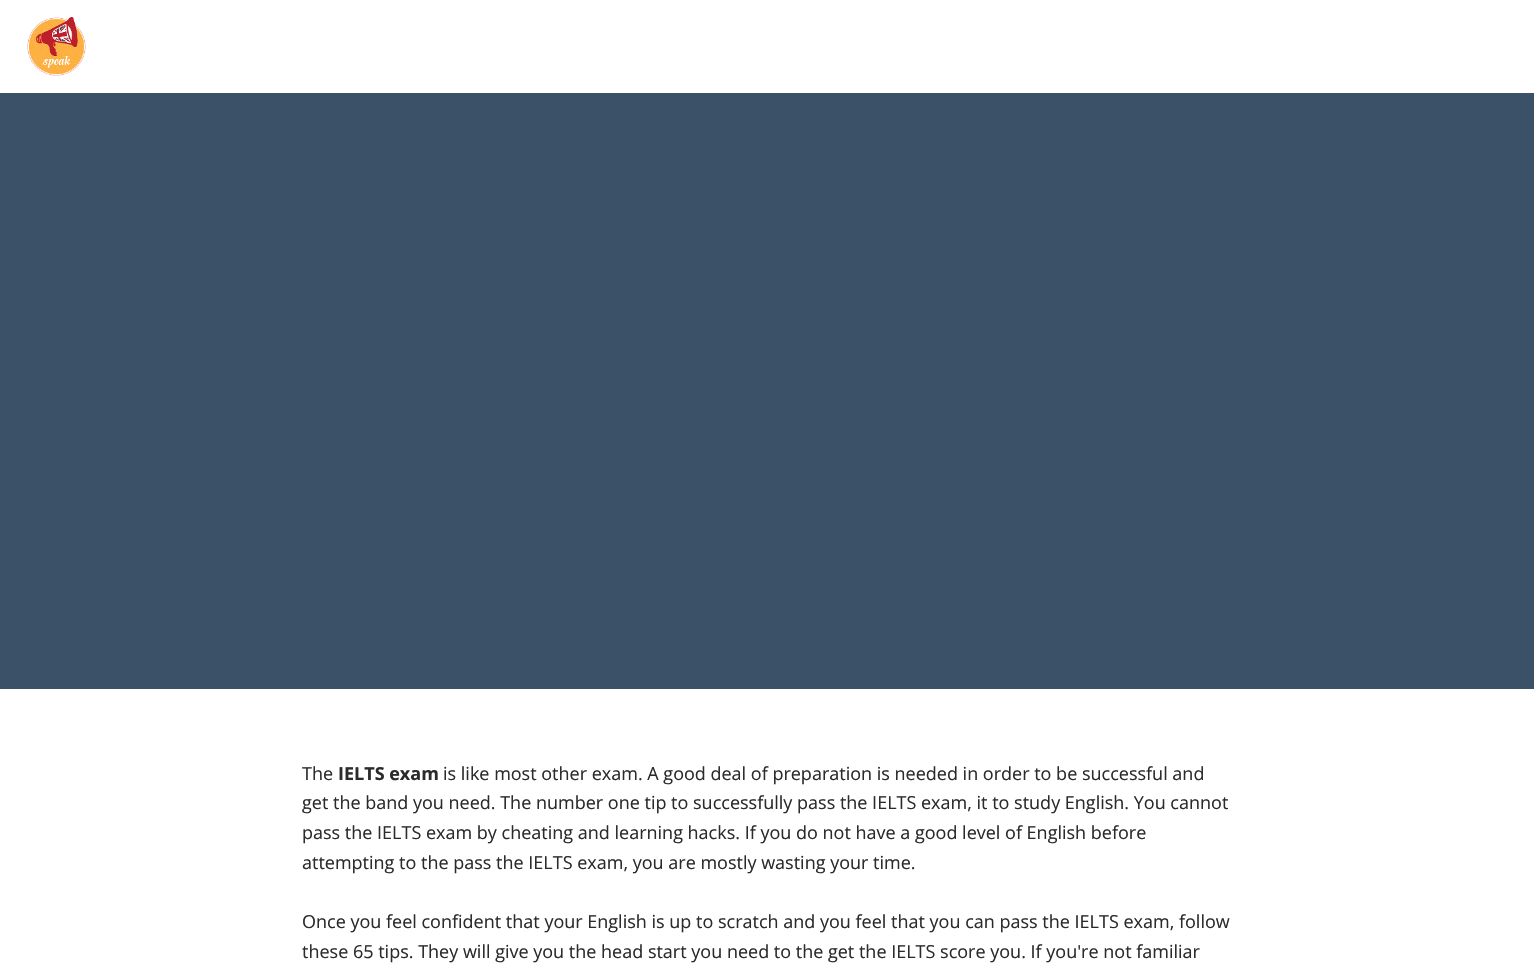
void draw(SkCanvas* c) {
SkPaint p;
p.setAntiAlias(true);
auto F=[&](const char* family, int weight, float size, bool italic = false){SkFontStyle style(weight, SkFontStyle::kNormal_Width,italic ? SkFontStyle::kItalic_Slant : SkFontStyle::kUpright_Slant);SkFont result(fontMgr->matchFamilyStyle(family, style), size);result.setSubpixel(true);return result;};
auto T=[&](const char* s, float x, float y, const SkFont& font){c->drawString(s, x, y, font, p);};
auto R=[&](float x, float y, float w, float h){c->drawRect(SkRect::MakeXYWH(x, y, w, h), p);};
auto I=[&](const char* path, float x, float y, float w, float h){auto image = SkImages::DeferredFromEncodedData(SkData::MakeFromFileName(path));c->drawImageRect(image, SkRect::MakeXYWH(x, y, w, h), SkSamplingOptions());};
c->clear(0xffffffff);
I("1.png",27,17,59,59);
p.setColor(0xff3a5167);
R(0,93,1534,596);
auto f1 = F("Open Sans",400,18);
p.setColor(0xff2b2b2b);
T("The",302,780,f1);
auto f2 = F("Open Sans",700,18);
T("IELTS exam",338,780,f2);
T("is like most other exam. A good deal of preparation is needed in order to be successful and",443,780,f1);
T("get the band you need. The number one tip to successfully pass the IELTS exam, it to study English. You cannot",302,809,f1);
T("pass the IELTS exam by cheating and learning hacks. If you do not have a good level of English before",302,839,f1);
T("attempting to the pass the IELTS exam, you are mostly wasting your time.",302,869,f1);
T("Once you feel confident that your English is up to scratch and you feel that you can pass the IELTS exam, follow",302,928,f1);
T("these 65 tips. They will give you the head start you need to the get the IELTS score you. If you're not familiar",302,958,f1);
}
